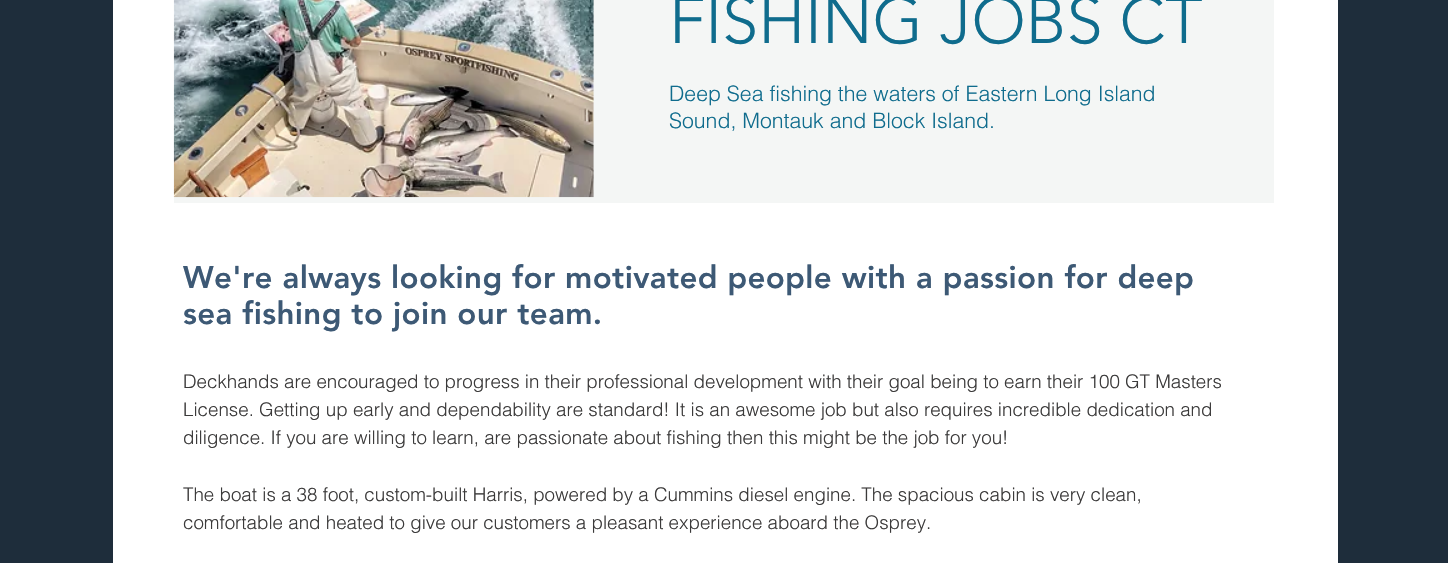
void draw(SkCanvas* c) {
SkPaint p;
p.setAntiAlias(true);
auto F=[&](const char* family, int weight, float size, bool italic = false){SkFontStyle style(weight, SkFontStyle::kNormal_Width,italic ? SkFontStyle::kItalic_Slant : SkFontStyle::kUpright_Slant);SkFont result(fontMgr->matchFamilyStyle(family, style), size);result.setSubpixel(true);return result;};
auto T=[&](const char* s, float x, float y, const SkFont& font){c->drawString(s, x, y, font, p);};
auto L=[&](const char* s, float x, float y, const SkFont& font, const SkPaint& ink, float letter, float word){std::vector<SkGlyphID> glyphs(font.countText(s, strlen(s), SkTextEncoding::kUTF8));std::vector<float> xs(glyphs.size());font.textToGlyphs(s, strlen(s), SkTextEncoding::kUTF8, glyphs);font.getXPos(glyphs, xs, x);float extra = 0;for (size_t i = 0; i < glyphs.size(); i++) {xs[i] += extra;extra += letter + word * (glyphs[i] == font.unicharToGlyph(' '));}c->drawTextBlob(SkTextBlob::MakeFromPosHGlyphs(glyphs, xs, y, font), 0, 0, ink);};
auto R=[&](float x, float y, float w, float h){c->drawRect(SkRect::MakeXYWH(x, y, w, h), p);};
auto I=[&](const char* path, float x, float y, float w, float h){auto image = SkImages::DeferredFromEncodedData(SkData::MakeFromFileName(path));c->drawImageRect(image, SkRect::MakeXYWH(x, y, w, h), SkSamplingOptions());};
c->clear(0xff1e2d3b);
p.setColor(0xffffffff);
R(113,0,1225,563);
p.setColor(0xfff4f6f5);
R(174,0,1100,203);
I("1.png",173,0,421,198);
auto f1 = F("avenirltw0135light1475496",300,65);
p.setColor(0xff0f6c8d);
T("FISHING JOBS CT",669,43,f1);
auto f2 = F("helvetica",300,21.25);
T("Deep Sea fishing the waters of Eastern Long Island",669,101,f2);
T("Sound, Montauk and Block Island.",669,128,f2);
auto f3 = F("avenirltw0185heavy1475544",900,31.25);
p.setColor(0xff3d5975);
L("We're always looking for motivated people with a passion for deep",183,288,f3,p,.38,0);
L("sea fishing to join our team.",183,324,f3,p,.38,0);
auto f4 = F("helvetica",300,18.75);
p.setColor(0xff3b3a3a);
T("Deckhands are encouraged to progress in their professional development with their goal being to earn their 100 GT Masters",183,388,f4);
T("License. Getting up early and dependability are standard! It is an awesome job but also requires incredible dedication and",183,416,f4);
T("diligence. If you are willing to learn, are passionate about fishing then this might be the job for you!",183,444,f4);
T("The boat is a 38 foot, custom-built Harris, powered by a Cummins diesel engine. The spacious cabin is very clean,",183,501,f4);
T("comfortable and heated to give our customers a pleasant experience aboard the Osprey.",183,529,f4);
}
